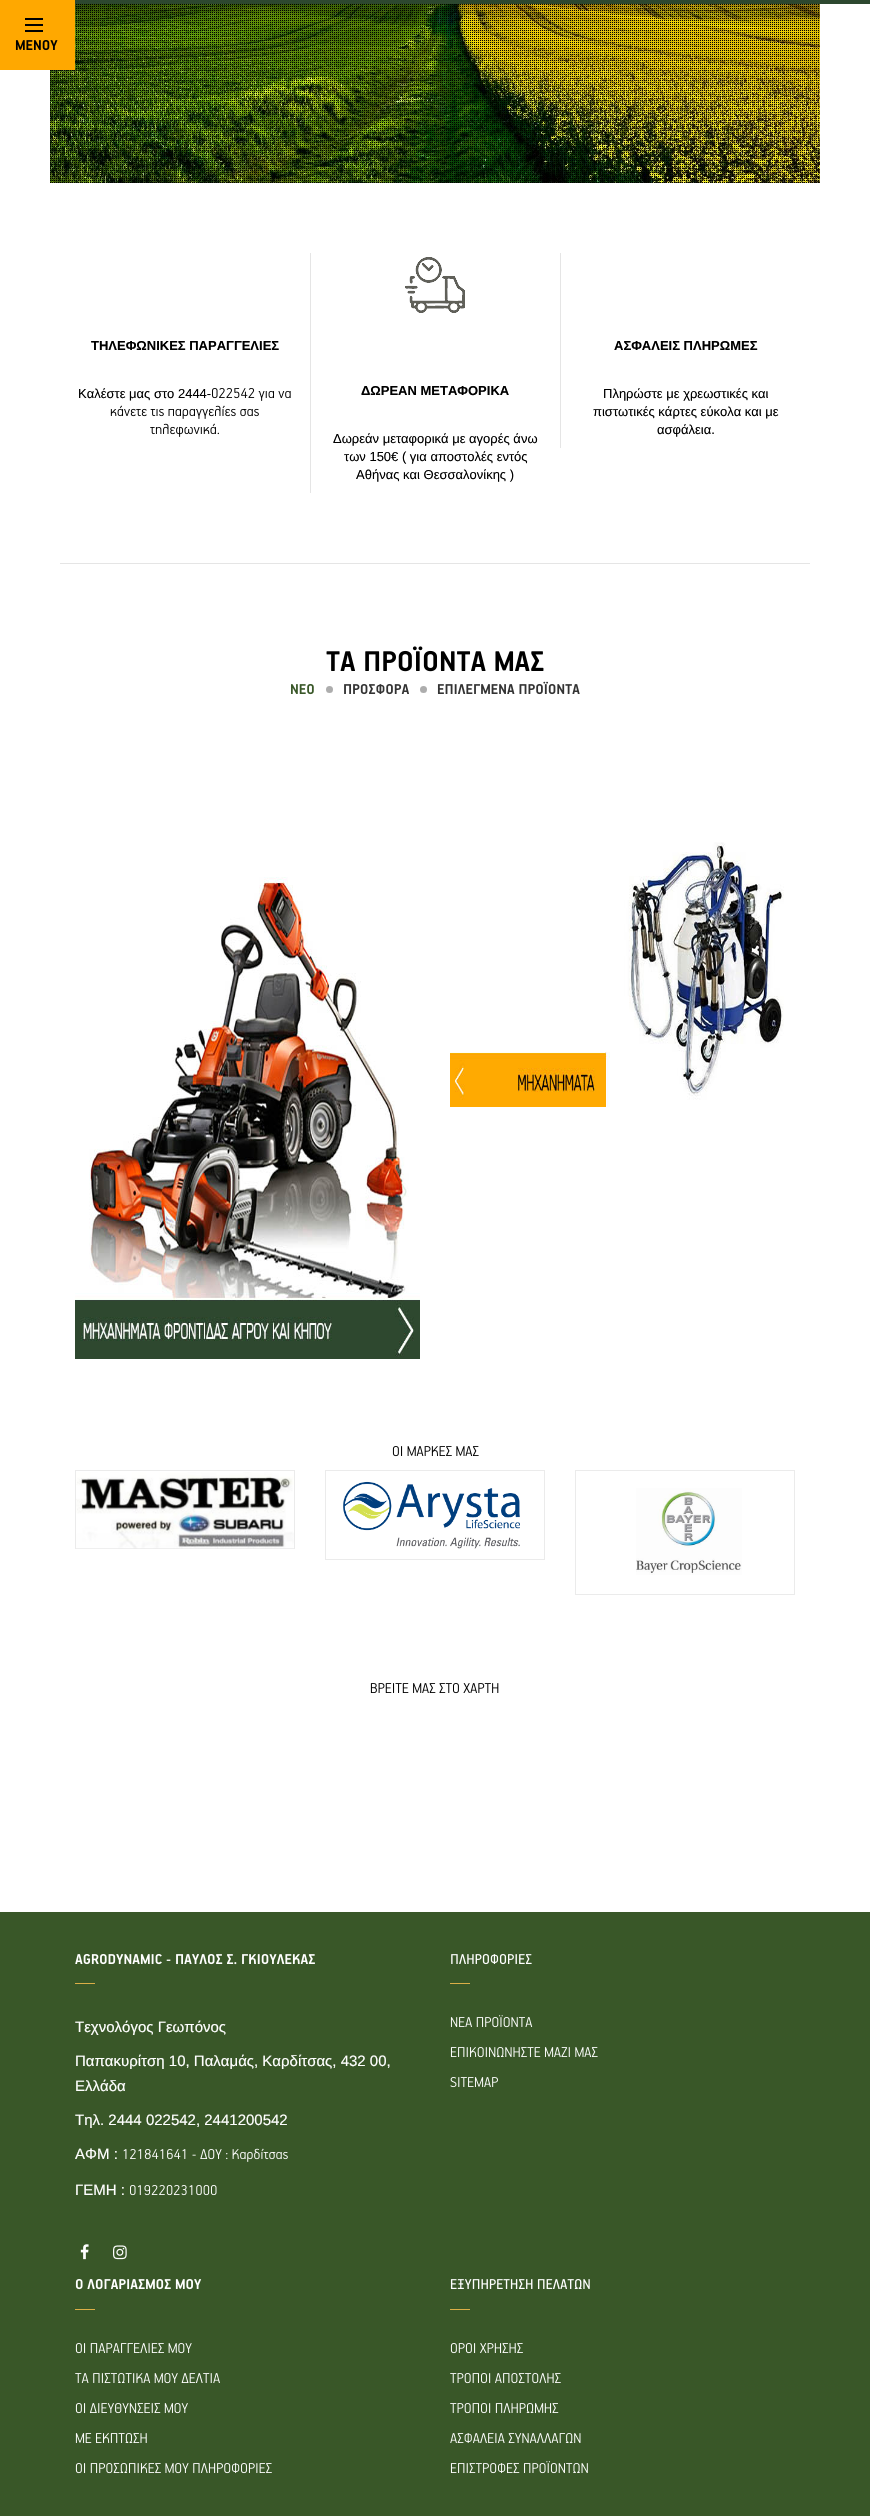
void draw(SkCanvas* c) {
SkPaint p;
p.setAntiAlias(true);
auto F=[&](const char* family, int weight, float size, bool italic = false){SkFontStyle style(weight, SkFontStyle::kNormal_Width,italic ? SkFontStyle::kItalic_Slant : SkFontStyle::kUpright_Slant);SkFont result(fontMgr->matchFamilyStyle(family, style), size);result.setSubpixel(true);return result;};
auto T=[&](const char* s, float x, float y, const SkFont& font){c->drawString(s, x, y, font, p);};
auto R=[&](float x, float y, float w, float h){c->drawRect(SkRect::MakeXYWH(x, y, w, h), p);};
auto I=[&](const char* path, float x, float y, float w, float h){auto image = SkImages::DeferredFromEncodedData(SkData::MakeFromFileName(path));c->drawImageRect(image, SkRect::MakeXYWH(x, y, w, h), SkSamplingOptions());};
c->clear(0xffffffff);
p.setColor(0xff2d482f);
R(75,0,795,4);
I("2.png",50,4,770,179);
I("3.png",50,4,769,179);
p.setColor(0xffffa800);
R(0,0,75,70);
p.setColor(0xff000000);
R(25,18,18,2);
R(25,24,18,2);
R(25,30,18,2);
I("1.png",15,40,43,11);
p.setColor(0xffe5e5e5);
R(60,563,750,1);
auto f1 = F("Liberation Sans",700,13);
p.setColor(0xff000000);
T("ΤΗΛΕΦΩΝΙΚΕΣ ΠΑΡΑΓΓΕΛΙΕΣ",91,350,f1);
auto f2 = F("Liberation Sans",400,13);
T("Καλέστε μας στο 2444-",78,398,f2);
I("4.png",212,388,79,13);
I("5.png",110,405,149,14);
I("6.png",150,423,69,14);
p.setColor(0xffe5e5e5);
R(310,253,1,240);
I("7.png",405,257,60,56);
p.setColor(0xff000000);
T("ΔΩΡΕΑΝ ΜΕΤΑΦΟΡΙΚΑ",361,395,f1);
T("Δωρεάν μεταφορικά με αγορές άνω",333,443,f2);
T("των 150€ ( για αποστολές εντός",344,461,f2);
T("Αθήνας και Θεσσαλονίκης )",356,479,f2);
p.setColor(0xffe5e5e5);
R(560,253,1,195);
p.setColor(0xff000000);
T("ΑΣΦΑΛΕΙΣ ΠΛΗΡΩΜΕΣ",614,350,f1);
T("Πληρώστε με χρεωστικές και",603,398,f2);
T("πιστωτικές κάρτες εύκολα και με",593,416,f2);
T("ασφάλεια.",657,434,f2);
I("8.png",326,646,218,26);
I("9.png",291,684,23,11);
p.setColor(0xffadadad);
c->drawCircle(329.5,689.5,3.5,p);
I("10.png",344,684,65,11);
c->drawCircle(423.5,689.5,3.5,p);
I("11.png",437,681,143,14);
I("12.png",75,877,345,482);
I("13.png",450,842,334,265);
I("14.png",392,1446,87,11);
p.setStroke(true);
p.setStrokeWidth(1);
p.setColor(0xffebebeb);
c->drawRect(SkRect::MakeXYWH(75.5,1470.5,219,78),p);
I("15.png",76,1472,218,77);
c->drawRect(SkRect::MakeXYWH(325.5,1470.5,219,89),p);
I("16.png",343,1481,177,68);
c->drawRect(SkRect::MakeXYWH(575.5,1470.5,219,124),p);
I("17.png",636,1488,106,87);
I("18.png",370,1683,129,11);
p.setStroke(false);
p.setColor(0xff395728);
R(0,1912,870,604);
I("19.png",75,1954,96,11);
I("20.png",176,1954,139,11);
p.setColor(0xffdbae47);
R(75,1983,20,1);
auto f3 = F("Liberation Sans",400,15);
p.setColor(0xffffffff);
T("Τεχνολόγος Γεωπόνος",75,2032,f3);
T("Παπακυρίτση 10, Παλαμάς, Καρδίτσας, 432 00,",75,2066,f3);
T("Ελλάδα",75,2091,f3);
T("Τηλ. 2444 022542, 2441200542",75,2125,f3);
T("ΑΦΜ :",75,2159,f3);
I("21.png",123,2148,165,14);
T("ΓΕΜΗ :",75,2195,f3);
I("22.png",130,2185,87,11);
I("23.png",80,2244,9,16);
I("24.png",113,2245,14,15);
I("25.png",451,1954,81,11);
p.setColor(0xffdbae47);
R(450,1983,20,1);
I("26.png",450,2015,83,13);
I("27.png",450,2047,148,11);
I("28.png",450,2077,48,11);
I("29.png",75,2279,127,11);
R(75,2309,20,1);
I("30.png",75,2343,117,11);
I("31.png",75,2373,145,11);
I("32.png",75,2403,113,11);
I("33.png",75,2433,72,10);
I("34.png",75,2463,197,11);
I("35.png",450,2279,140,10);
R(450,2309,20,1);
I("36.png",450,2343,73,11);
I("37.png",450,2373,111,11);
I("38.png",450,2403,109,11);
I("39.png",450,2433,131,10);
I("40.png",450,2461,138,13);
}
